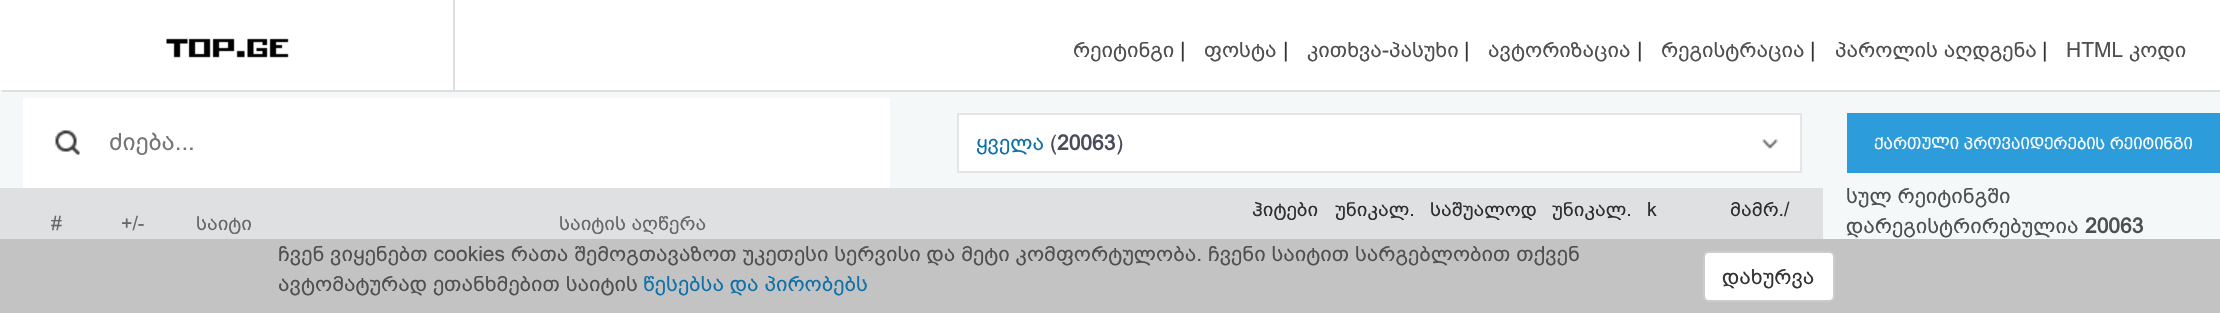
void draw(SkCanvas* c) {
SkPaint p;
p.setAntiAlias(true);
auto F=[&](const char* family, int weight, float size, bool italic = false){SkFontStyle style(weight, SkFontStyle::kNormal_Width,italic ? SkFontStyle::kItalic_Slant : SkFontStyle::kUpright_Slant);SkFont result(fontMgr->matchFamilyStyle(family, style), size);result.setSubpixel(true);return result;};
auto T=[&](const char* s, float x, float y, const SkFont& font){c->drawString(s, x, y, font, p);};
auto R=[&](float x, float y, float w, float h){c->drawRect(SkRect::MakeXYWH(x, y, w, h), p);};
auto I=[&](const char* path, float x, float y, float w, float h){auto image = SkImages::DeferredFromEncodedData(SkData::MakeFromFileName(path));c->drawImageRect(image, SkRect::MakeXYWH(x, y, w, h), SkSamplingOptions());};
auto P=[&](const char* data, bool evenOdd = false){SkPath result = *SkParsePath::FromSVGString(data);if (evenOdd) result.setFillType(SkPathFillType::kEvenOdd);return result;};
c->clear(0xfff4f8f9);
p.setColor(0xffdcdfe0);
c->drawPath(P("M2 90v2h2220v-90h-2v88z"),p);
p.setColor(0xffffffff);
R(0,0,2220,90);
p.setColor(0xffdbdfe0);
R(453,0,2,90);
I("1.png",166,38,123,20);
auto f1 = F("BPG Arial",400,21);
p.setColor(0xff4f4f4f);
T("რეიტინგი",1073,57,f1);
auto f2 = F("Liberation Sans",400,21);
p.setColor(0xff333333);
T("|",1180,57,f2);
p.setColor(0xff4f4f4f);
T("ფოსტა",1204,57,f1);
p.setColor(0xff333333);
T("|",1283,57,f2);
p.setColor(0xff4f4f4f);
T("კითხვა-პასუხი",1307,57,f1);
p.setColor(0xff333333);
T("|",1464,57,f2);
p.setColor(0xff4f4f4f);
T("ავტორიზაცია",1488,57,f1);
p.setColor(0xff333333);
T("|",1637,57,f2);
p.setColor(0xff4f4f4f);
T("რეგისტრაცია",1661,57,f1);
p.setColor(0xff333333);
T("|",1810,57,f2);
p.setColor(0xff4f4f4f);
T("პაროლის აღდგენა",1835,57,f1);
p.setColor(0xff333333);
T("|",2042,57,f2);
p.setColor(0xff4f4f4f);
T("HTML კოდი",2066,57,f1);
p.setColor(0xffffffff);
R(23,98,867,90);
I("2.png",55,130,25,25);
auto f3 = F("BPG Arial",400,24);
p.setColor(0xff757575);
T("ძიება...",109,150,f3);
p.setColor(0xffffffff);
c->drawRect(SkRect::MakeXYWH(958,114,843,58),p);
p.setStroke(true);
p.setStrokeWidth(2);
p.setColor(0xffe5e5e5);
c->drawRect(SkRect::MakeXYWH(958,114,843,58),p);
p.setStroke(false);
p.setColor(0xff0e71a9);
T("ყველა",976,150,f1);
p.setColor(0xff494c59);
T("(",1050,150,f1);
auto f4 = F("BPG Arial",700,21);
T("20063",1057,150,f4);
T(")",1116,150,f1);
I("3.png",1762,139,16,10);
p.setColor(0xffdee0e1);
R(0,188,1823,51);
auto f5 = F("BPG Arial",400,19.5);
p.setColor(0xff2d2d2d);
T("ჰიტები",1252,216,f5);
T("უნიკალ.",1335,216,f5);
T("საშუალოდ",1430,216,f5);
T("უნიკალ.",1552,216,f5);
T("k",1647,216,f5);
T("მამრ./",1730,216,f5);
p.setColor(0xff666666);
T("#",51,230,f5);
T("+/-",121,230,f5);
T("საიტი",196,230,f5);
T("საიტის აღწერა",559,230,f5);
p.setColor(0xff2d9cdb);
R(1847,113,373,60);
auto f6 = F("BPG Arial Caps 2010",400,16.5);
p.setColor(0xffffffff);
T("ქართული პროვაიდერების რეიტინგი",1874,149,f6);
p.setColor(0xff4f4f4f);
T("სულ რეიტინგში",1846,203,f1);
T("დარეგისტრირებულია",1846,233,f1);
T("20063",2085,233,f4);
p.setColor(0xffc3c3c3);
R(0,239,2220,74);
p.setColor(0xff4f4f4f);
T("ჩვენ ვიყენებთ cookies რათა შემოგთავაზოთ უკეთესი სერვისი და მეტი კომფორტულობა. ჩვენი საიტით სარგებლობით თქვენ",278,261,f1);
T("ავტომატურად ეთანხმებით საიტის",278,291,f1);
p.setColor(0xff0e71a9);
T("წესებსა და პირობებს",643,291,f1);
p.setColor(0xffffffff);
c->drawRoundRect(SkRect::MakeXYWH(1704,252,130,49),5,5,p);
p.setStroke(true);
p.setColor(0xffcccccc);
c->drawRoundRect(SkRect::MakeXYWH(1704,252,130,49),5,5,p);
p.setStroke(false);
p.setColor(0xff333333);
T("დახურვა",1722,284,f1);
}
